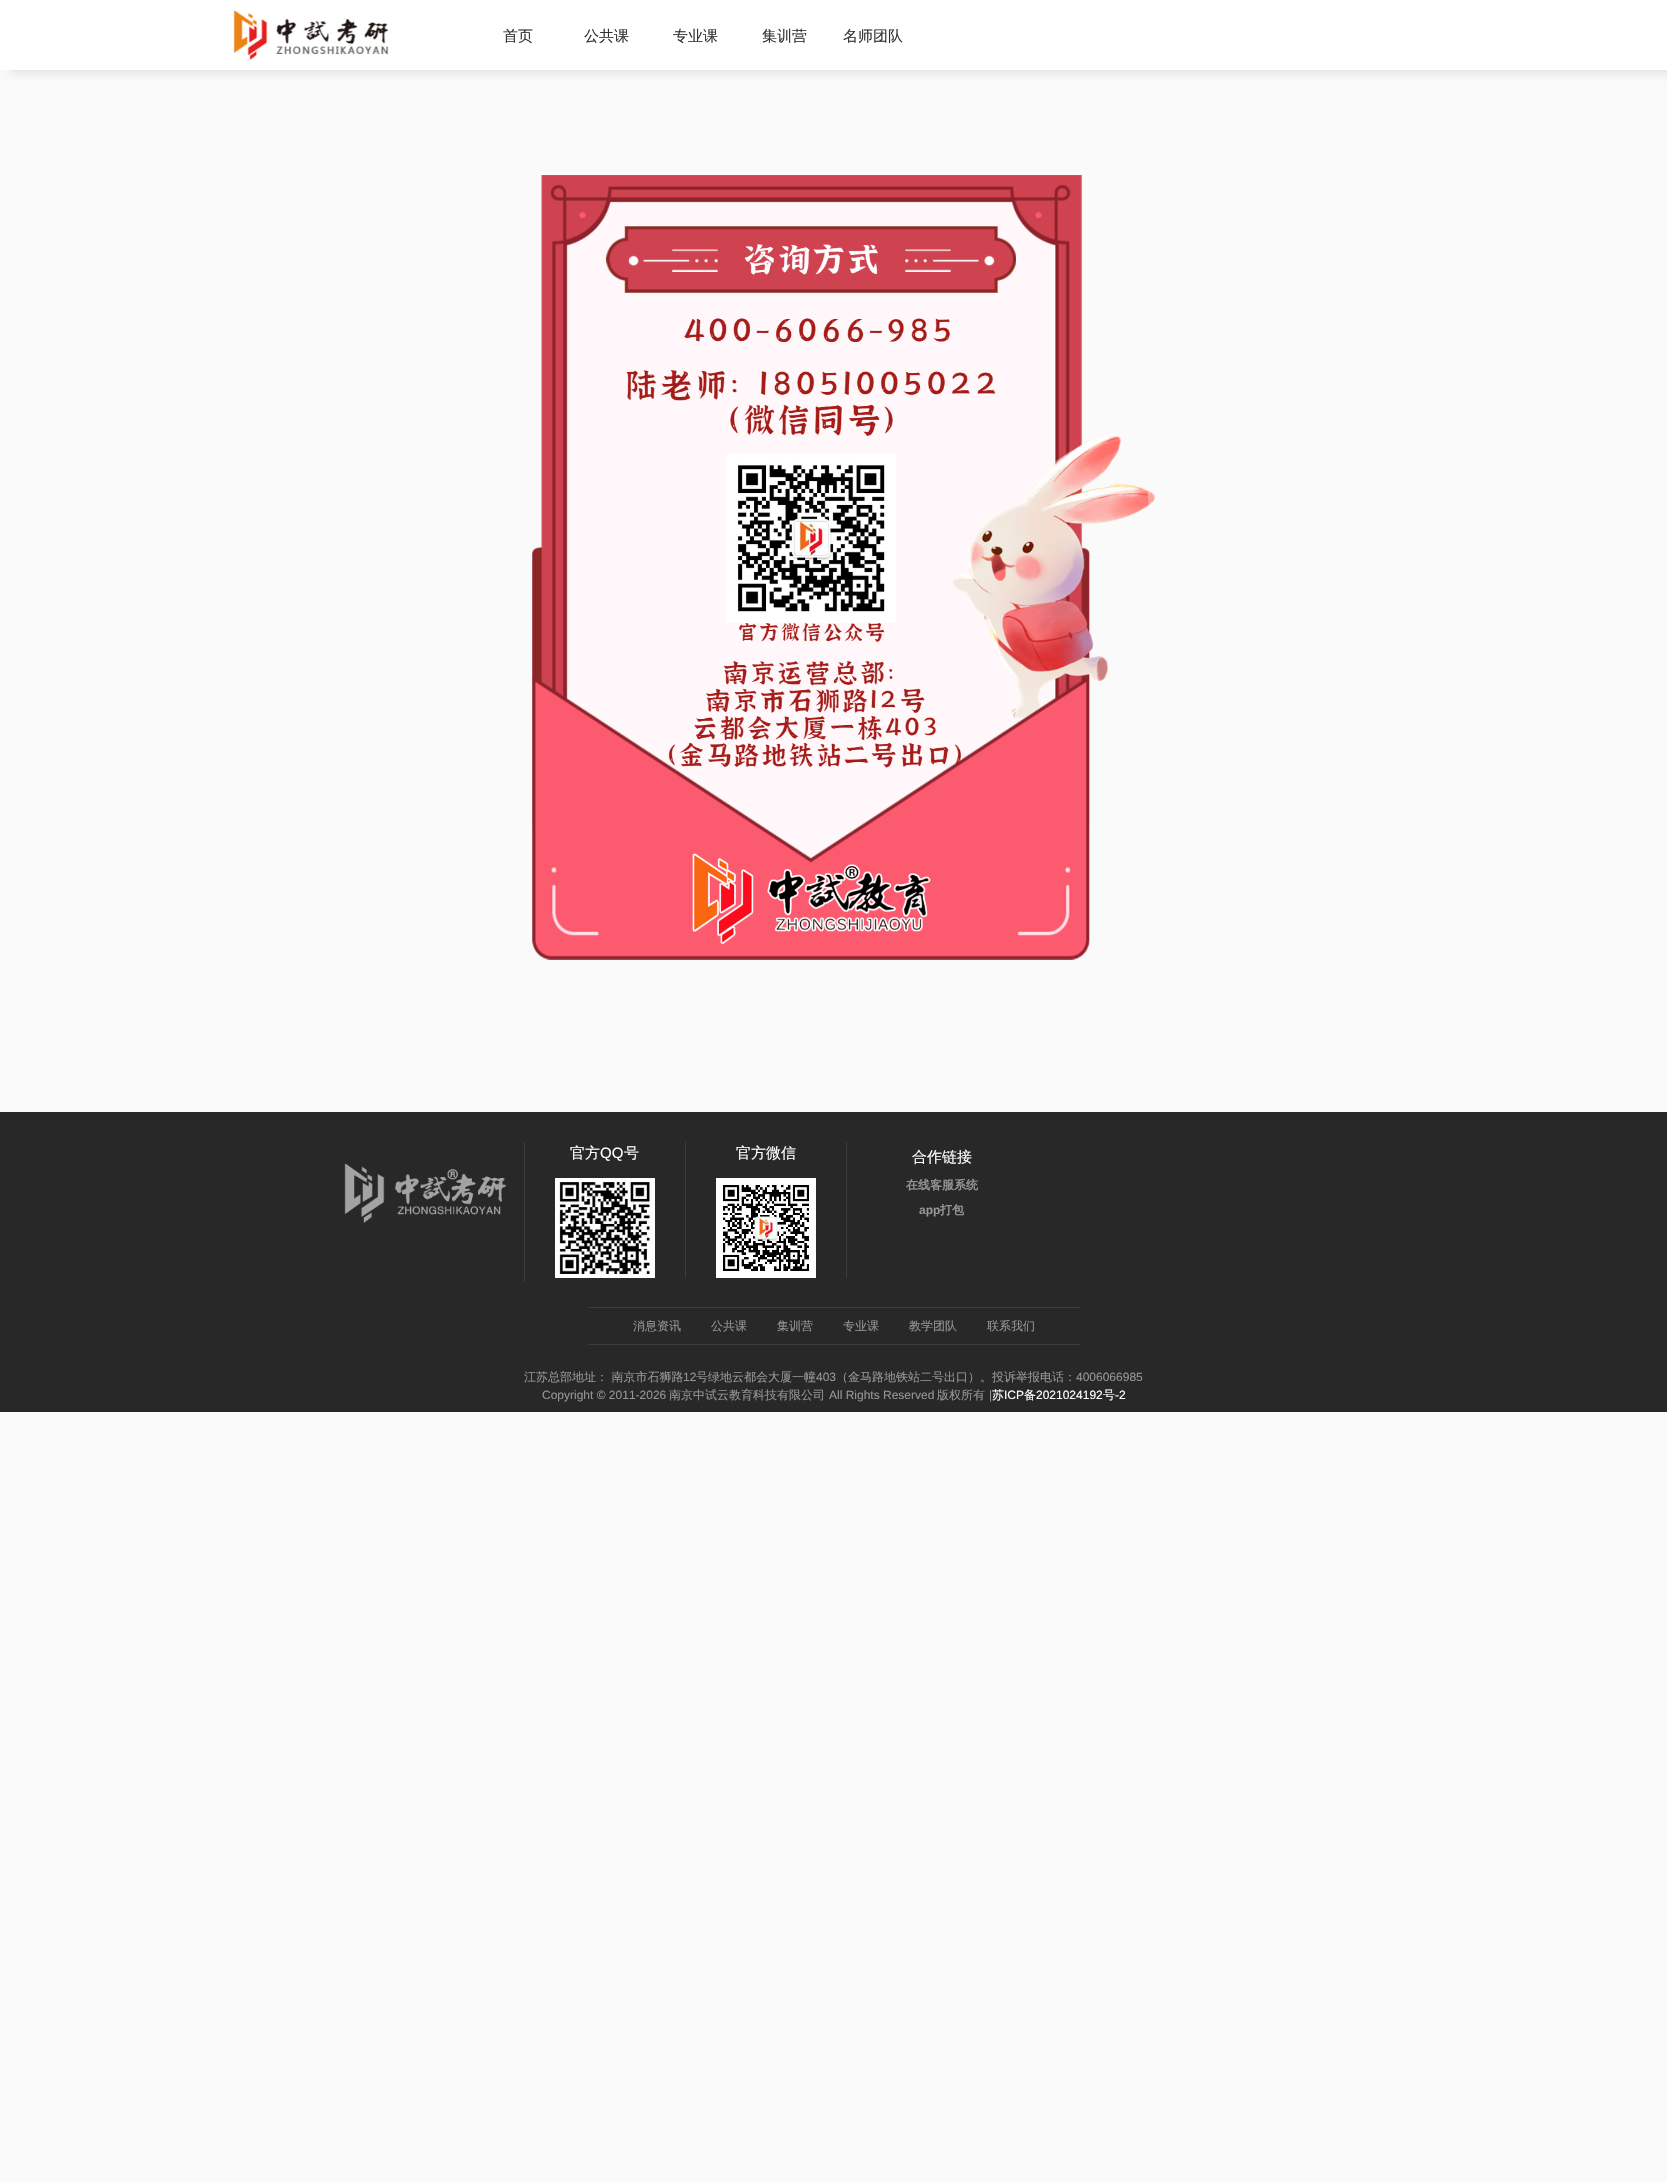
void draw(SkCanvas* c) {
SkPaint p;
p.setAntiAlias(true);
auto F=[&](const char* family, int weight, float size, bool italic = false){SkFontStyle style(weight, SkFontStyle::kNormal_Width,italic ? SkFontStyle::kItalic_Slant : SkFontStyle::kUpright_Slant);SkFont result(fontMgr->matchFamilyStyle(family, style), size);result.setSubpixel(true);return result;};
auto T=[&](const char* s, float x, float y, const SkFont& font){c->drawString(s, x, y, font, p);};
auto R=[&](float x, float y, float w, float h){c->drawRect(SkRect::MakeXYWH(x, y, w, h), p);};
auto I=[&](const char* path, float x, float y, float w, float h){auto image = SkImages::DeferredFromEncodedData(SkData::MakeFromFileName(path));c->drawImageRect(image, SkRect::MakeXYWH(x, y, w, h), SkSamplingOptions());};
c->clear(0xfffafafa);
p.setColor(0xffdddddd);
p.setMaskFilter(SkMaskFilter::MakeBlur(kNormal_SkBlurStyle, 5));
c->drawRect(SkRect::MakeXYWH(10,2,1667,70),p);
p.setMaskFilter(nullptr);
p.setColor(0xffffffff);
R(0,0,1667,70);
I("1.png",233,10,156,50);
auto f1 = F("WenQuanYi Zen Hei",500,15);
p.setColor(0xff313131);
T("首页",503,41,f1);
T("公共课",584,41,f1);
T("专业课",673,41,f1);
T("集训营",762,41,f1);
T("名师团队",843,41,f1);
I("2.png",532,175,623,785);
p.setColor(0xff282828);
R(0,1112,1667,300);
p.setColor(0xff3c3c3c);
R(524,1142,1,140);
I("3.png",344,1163,162,60);
R(685,1142,1,136);
p.setColor(0xffffffff);
T("官方",570,1158,f1);
auto f2 = F("Liberation Sans",400,15);
T("QQ",600,1158,f2);
T("号",624,1158,f1);
I("4.png",555,1178,100,100);
p.setColor(0xff3c3c3c);
R(846,1142,1,136);
p.setColor(0xffffffff);
T("官方微信",736,1158,f1);
I("5.png",716,1178,100,100);
T("合作链接",912,1162,f1);
auto f3 = F("WenQuanYi Zen Hei",700,12);
p.setColor(0xff969696);
T("在线客服系统",906,1189,f3);
auto f4 = F("Liberation Sans",700,12);
T("app",919,1214,f4);
T("打包",940,1214,f3);
p.setColor(0xff3c3c3c);
R(588,1307,492,1);
R(588,1344,492,1);
auto f5 = F("WenQuanYi Zen Hei",500,12);
p.setColor(0xff969696);
T("消息资讯",633,1330,f5);
T("公共课",711,1330,f5);
T("集训营",777,1330,f5);
T("专业课",843,1330,f5);
T("教学团队",909,1330,f5);
T("联系我们",987,1330,f5);
T("江苏总部地址： 南京市石狮路",524,1381,f5);
auto f6 = F("Liberation Sans",400,12);
T("12",683,1381,f6);
T("号绿地云都会大厦一幢",696,1381,f5);
T("403",816,1381,f6);
T("（金马路地铁站二号出口）。投诉举报电话：",836,1381,f5);
T("4006066985",1076,1381,f6);
T("Copyright © 2011-2026",542,1399,f6);
T("南京中试云教育科技有限公司",669,1399,f5);
T("All Rights Reserved",829,1399,f6);
T("版权所有",937,1399,f5);
T("|",989,1399,f6);
p.setColor(0xffffffff);
T("苏",992,1399,f5);
T("ICP",1004,1399,f6);
T("备",1024,1399,f5);
T("2021024192",1036,1399,f6);
T("号",1103,1399,f5);
T("-2",1115,1399,f6);
}
